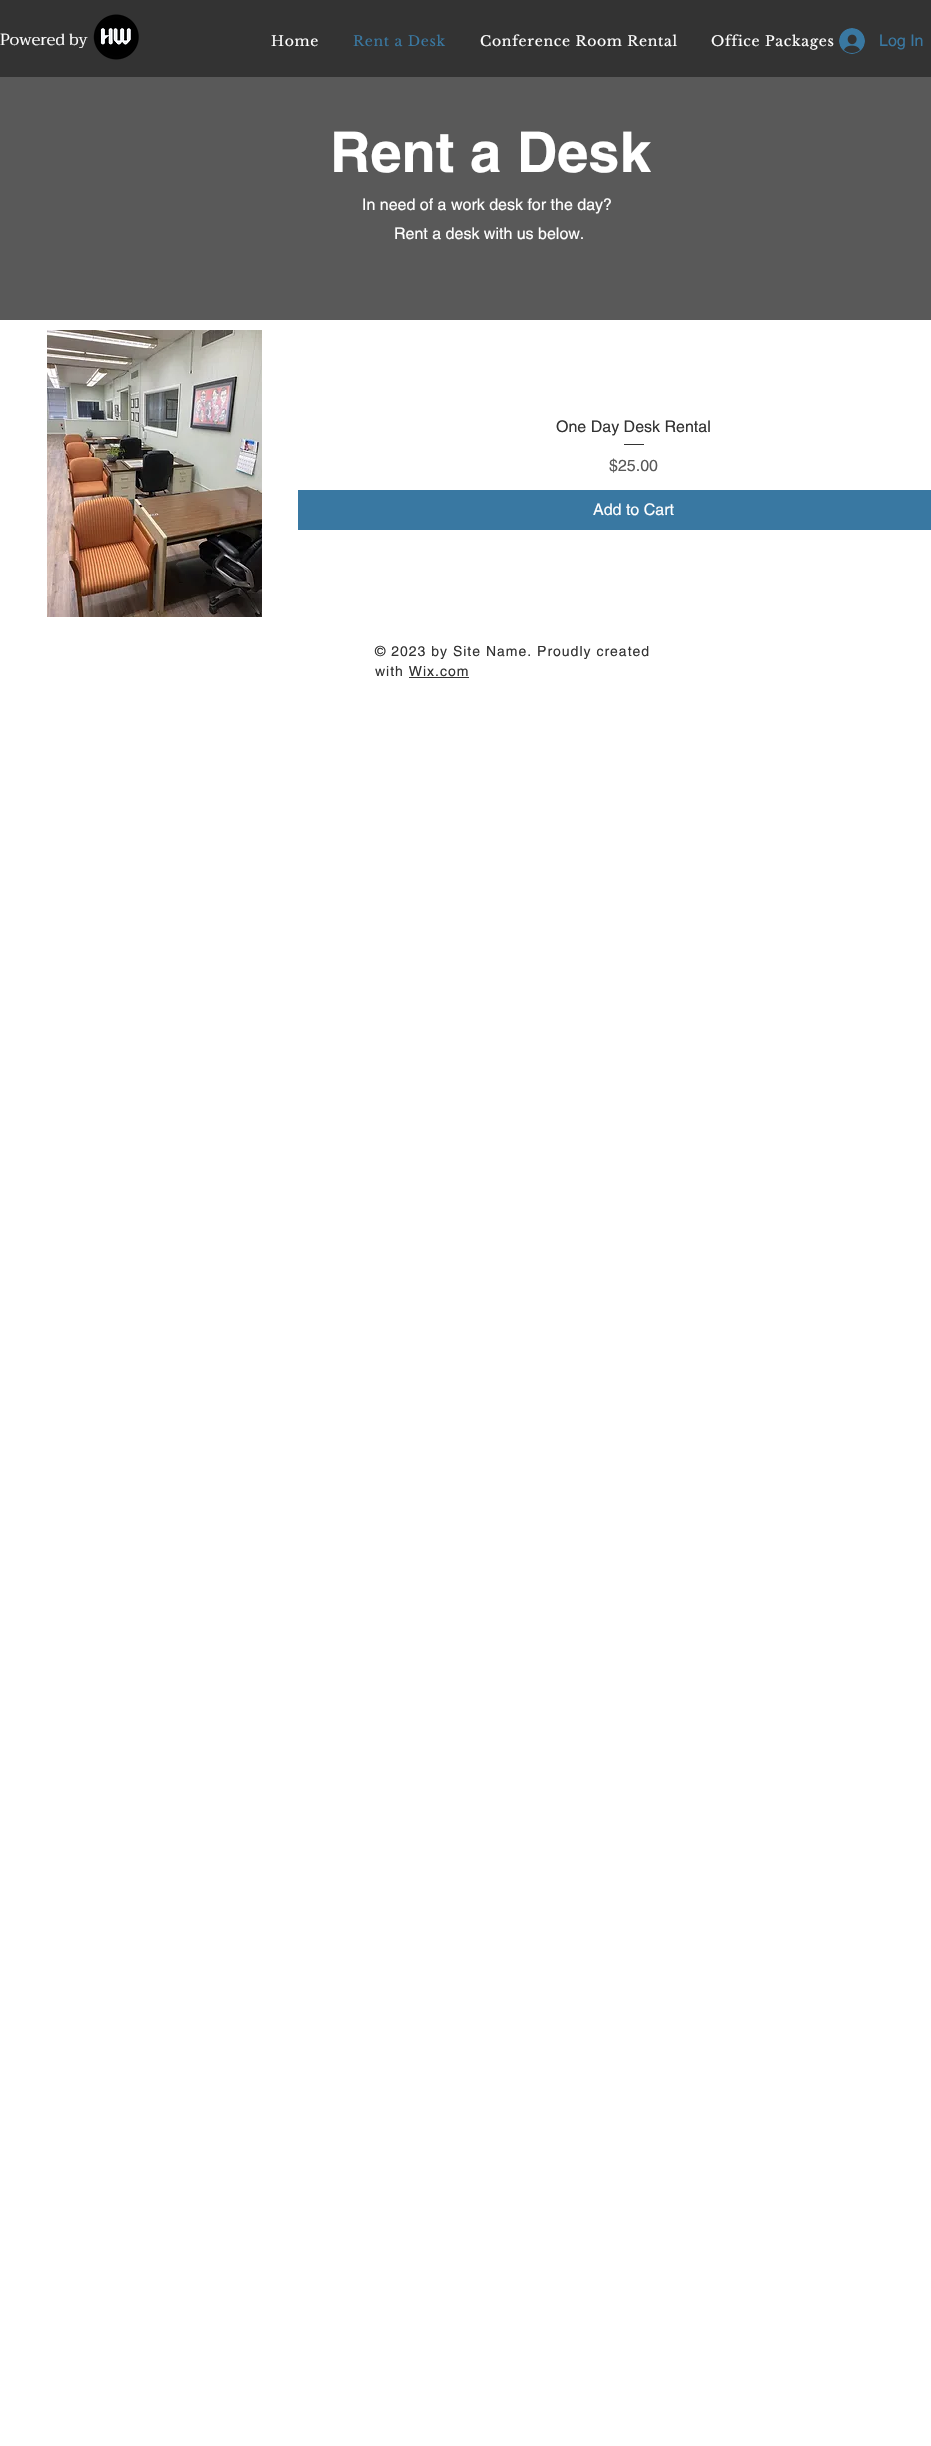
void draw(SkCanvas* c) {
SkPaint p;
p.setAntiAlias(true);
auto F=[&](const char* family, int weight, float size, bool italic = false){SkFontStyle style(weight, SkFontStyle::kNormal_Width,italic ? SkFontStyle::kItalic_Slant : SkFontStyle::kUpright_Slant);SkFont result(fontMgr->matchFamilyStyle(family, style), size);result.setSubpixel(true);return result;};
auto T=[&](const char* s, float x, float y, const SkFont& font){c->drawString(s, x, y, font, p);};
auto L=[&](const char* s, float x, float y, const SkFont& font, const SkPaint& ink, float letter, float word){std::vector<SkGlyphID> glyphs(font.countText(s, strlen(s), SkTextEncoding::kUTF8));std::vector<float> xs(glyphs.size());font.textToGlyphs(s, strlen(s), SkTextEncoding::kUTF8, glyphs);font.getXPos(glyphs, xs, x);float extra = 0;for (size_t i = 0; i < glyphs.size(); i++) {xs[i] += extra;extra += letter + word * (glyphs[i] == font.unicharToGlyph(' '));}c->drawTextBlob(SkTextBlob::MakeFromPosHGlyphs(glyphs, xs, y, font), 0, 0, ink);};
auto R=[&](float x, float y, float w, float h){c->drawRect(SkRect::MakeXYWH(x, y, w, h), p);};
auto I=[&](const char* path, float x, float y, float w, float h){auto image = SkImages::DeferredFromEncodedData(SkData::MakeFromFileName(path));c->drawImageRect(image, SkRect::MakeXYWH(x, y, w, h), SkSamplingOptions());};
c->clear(0xffffffff);
p.setColor(0xff333333);
R(0,0,931,77);
auto f1 = F("Trirong",400,16);
p.setColor(0xffffffff);
T("Powered by",0,45,f1);
I("1.png",93,14,46,46);
auto f2 = F("Libre Baskerville",400,14);
L("Home",271,46,f2,p,.7,0);
p.setColor(0xff3978a2);
L("Rent a Desk",353,46,f2,p,.7,0);
p.setColor(0xffffffff);
L("Conference Room Rental",480,46,f2,p,.7,0);
L("Office Packages",711,46,f2,p,.7,0);
I("2.png",839,28,26,26);
auto f3 = F("helvetica",400,16);
p.setColor(0xff3978a2);
T("Log In",879,46,f3);
p.setColor(0xff595959);
R(0,77,931,243);
auto f4 = F("helvetica",700,56);
p.setColor(0xffffffff);
T("Rent a Desk",330,172,f4);
T("In need of a work desk for the day?",362,210,f3);
T("Rent a desk with us below.",394,239,f3);
I("3.png",47,330,215,287);
p.setColor(0xff333333);
T("One Day Desk Rental",556,432,f3);
R(624,444,20,1);
p.setColor(0xff595959);
T("$25.00",609,471,f3);
p.setColor(0xff3978a2);
R(298,490,633,40);
p.setColor(0xffffffff);
T("Add to Cart",593,515,f3);
auto f5 = F("helvetica",400,14);
p.setColor(0xff333333);
L("© 2023 by Site Name. Proudly created",375,656,f5,p,1,0);
L("with Wix.com",375,676,f5,p,1,0);
R(409,677,60,1);
}
